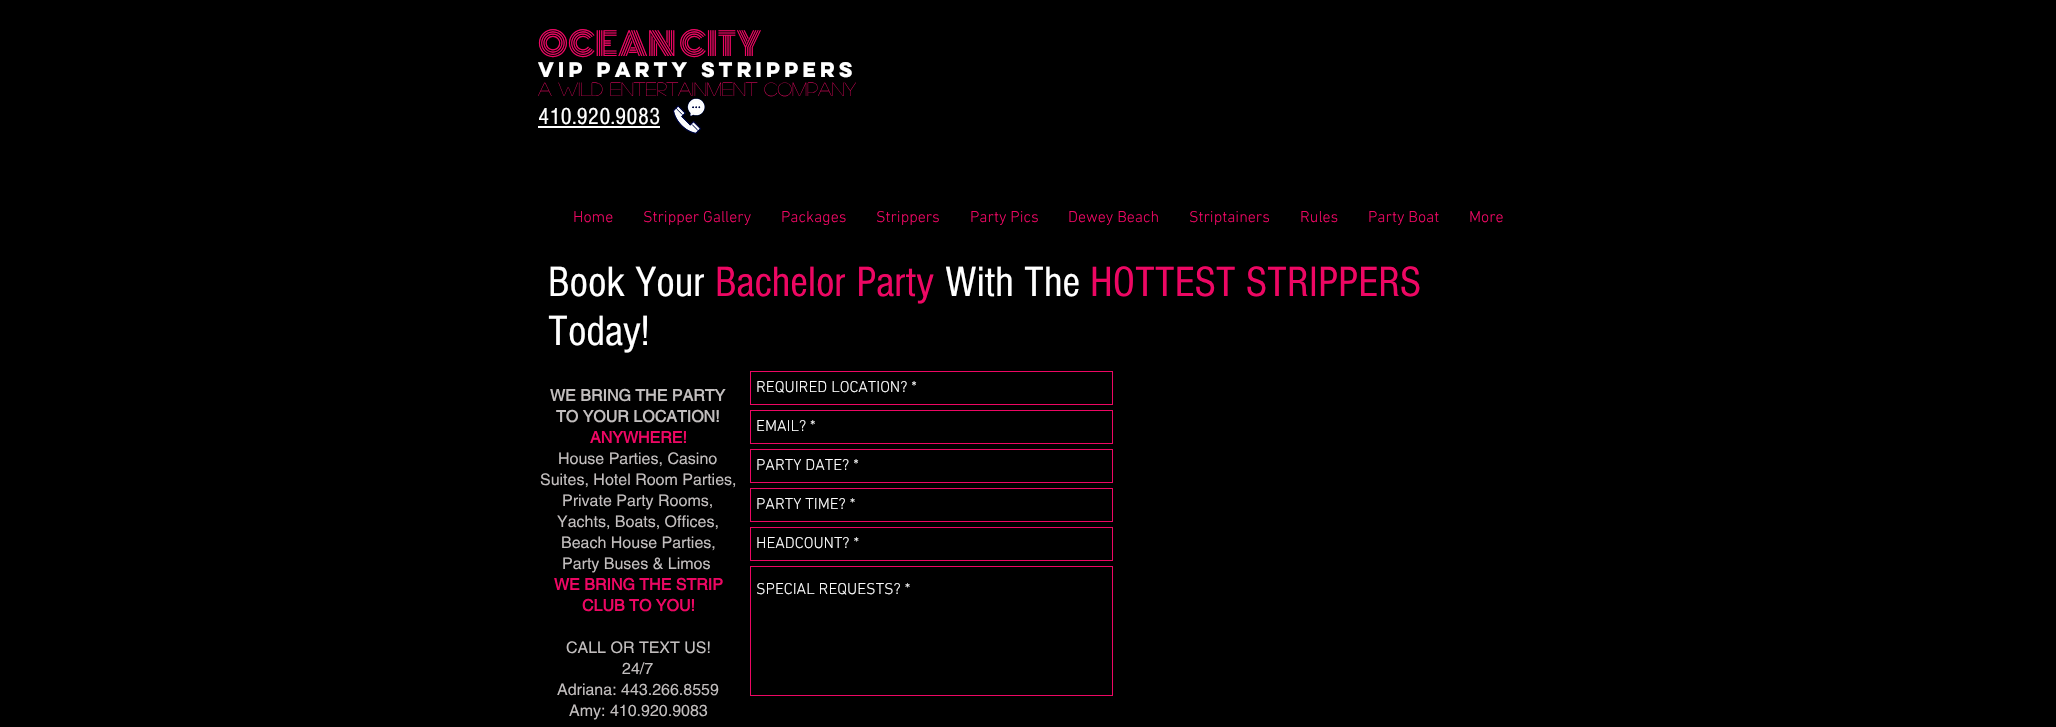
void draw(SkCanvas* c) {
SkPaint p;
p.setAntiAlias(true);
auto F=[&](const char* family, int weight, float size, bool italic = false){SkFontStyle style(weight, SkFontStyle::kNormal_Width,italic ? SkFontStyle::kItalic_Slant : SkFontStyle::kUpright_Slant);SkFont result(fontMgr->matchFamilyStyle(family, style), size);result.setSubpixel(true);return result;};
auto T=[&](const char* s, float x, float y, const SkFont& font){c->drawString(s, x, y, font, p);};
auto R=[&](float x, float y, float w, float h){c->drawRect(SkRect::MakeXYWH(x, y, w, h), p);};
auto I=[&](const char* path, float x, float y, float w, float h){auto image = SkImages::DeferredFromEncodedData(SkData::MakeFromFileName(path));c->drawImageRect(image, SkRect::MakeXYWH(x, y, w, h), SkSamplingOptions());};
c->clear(0xff000000);
auto f1 = F("Monoton",400,32);
p.setColor(0xffed0763);
T("OCEAN CITY",538,56,f1);
auto f2 = F("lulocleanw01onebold",700,19);
p.setColor(0xffffffff);
T("VIP PARTY STRIPPERS",538,77,f2);
auto f3 = F("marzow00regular",400,19);
p.setColor(0xffed0763);
T("A Wild Entertainment Company",538,96,f3);
auto f4 = F("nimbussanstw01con",400,24);
p.setColor(0xffffffff);
T("410.920.9083",538,124,f4);
R(538,126,122,2);
I("1.png",673,98,32,36);
auto f5 = F("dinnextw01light",300,16);
p.setColor(0xffed0763);
T("Home",573,222,f5);
T("Stripper Gallery",643,222,f5);
T("Packages",781,222,f5);
T("Strippers",876,222,f5);
T("Party Pics",970,222,f5);
T("Dewey Beach",1068,222,f5);
T("Striptainers",1189,222,f5);
T("Rules",1300,222,f5);
T("Party Boat",1368,222,f5);
T("More",1469,222,f5);
auto f6 = F("nimbussanstw01con",400,44);
p.setColor(0xffffffff);
T("Book Your",548,296,f6);
p.setColor(0xffed0763);
T("Bachelor Party",715,296,f6);
p.setColor(0xffffffff);
T("With The",945,296,f6);
p.setColor(0xffed0763);
T("HOTTEST STRIPPERS",1090,296,f6);
p.setColor(0xffffffff);
T("Today!",548,345,f6);
auto f7 = F("helvetica",700,16);
p.setColor(0xffc2bebe);
T("WE BRING THE PARTY",550,401,f7);
T("TO YOUR LOCATION!",556,422,f7);
p.setColor(0xffed0763);
T("ANYWHERE!",590,443,f7);
auto f8 = F("helvetica",400,16);
p.setColor(0xffc2bebe);
T("House Parties, Casino",558,464,f8);
T("Suites, Hotel Room Parties,",540,485,f8);
T("Private Party Rooms,",562,506,f8);
T("Yachts, Boats, Offices,",557,527,f8);
T("Beach House Parties,",561,548,f8);
T("Party Buses & Limos",562,569,f8);
p.setColor(0xffed0763);
T("WE BRING THE STRIP",554,590,f7);
T("CLUB TO YOU!",582,611,f7);
p.setColor(0xffc2bebe);
T("CALL OR TEXT US!",566,653,f8);
T("24/7",622,674,f8);
T("Adriana: 443.266.8559",557,695,f8);
T("Amy: 410.920.9083",569,716,f8);
p.setStroke(true);
p.setStrokeWidth(1);
p.setColor(0xffed0763);
c->drawRect(SkRect::MakeXYWH(750.5,371.5,362,33),p);
p.setStroke(false);
p.setColor(0xffffffff);
T("REQUIRED LOCATION? *",756,392,f5);
p.setStroke(true);
p.setColor(0xffed0763);
c->drawRect(SkRect::MakeXYWH(750.5,410.5,362,33),p);
p.setStroke(false);
p.setColor(0xffffffff);
T("EMAIL? *",756,431,f5);
p.setStroke(true);
p.setColor(0xffed0763);
c->drawRect(SkRect::MakeXYWH(750.5,449.5,362,33),p);
p.setStroke(false);
p.setColor(0xffffffff);
T("PARTY DATE? *",756,470,f5);
p.setStroke(true);
p.setColor(0xffed0763);
c->drawRect(SkRect::MakeXYWH(750.5,488.5,362,33),p);
p.setStroke(false);
p.setColor(0xffffffff);
T("PARTY TIME? *",756,509,f5);
p.setStroke(true);
p.setColor(0xffed0763);
c->drawRect(SkRect::MakeXYWH(750.5,527.5,362,33),p);
p.setStroke(false);
p.setColor(0xffffffff);
T("HEADCOUNT? *",756,548,f5);
p.setStroke(true);
p.setColor(0xffed0763);
c->drawRect(SkRect::MakeXYWH(750.5,566.5,362,129),p);
p.setStroke(false);
p.setColor(0xffffffff);
T("SPECIAL REQUESTS? *",756,594,f5);
}
